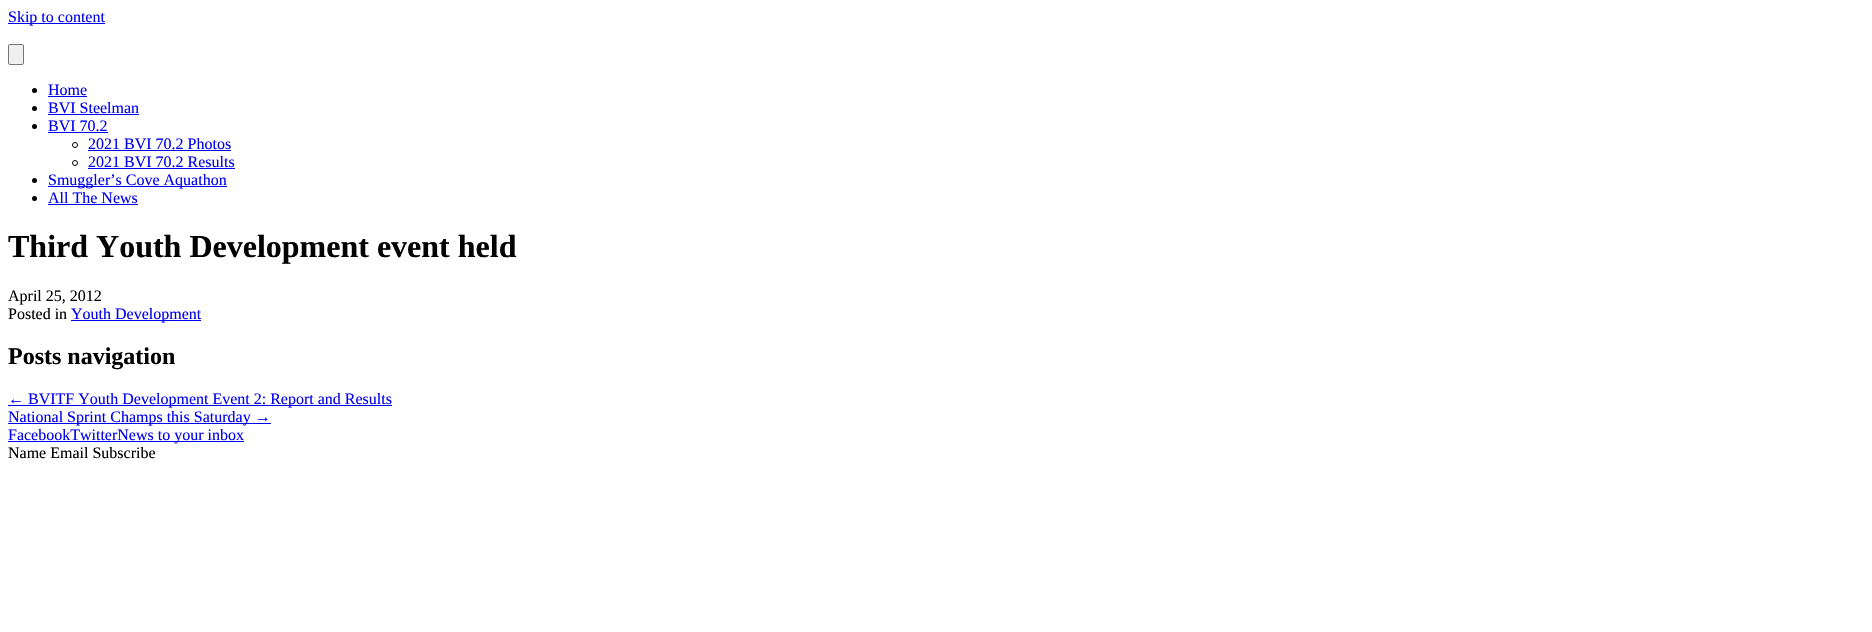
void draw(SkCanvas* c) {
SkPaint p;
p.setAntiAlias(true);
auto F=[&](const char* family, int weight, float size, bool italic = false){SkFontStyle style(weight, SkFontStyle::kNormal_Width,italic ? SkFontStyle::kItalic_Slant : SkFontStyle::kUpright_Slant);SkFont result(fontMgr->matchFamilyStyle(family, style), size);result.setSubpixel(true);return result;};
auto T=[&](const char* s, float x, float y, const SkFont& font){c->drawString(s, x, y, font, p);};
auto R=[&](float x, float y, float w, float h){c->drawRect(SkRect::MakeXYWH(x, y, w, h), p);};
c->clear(0xffffffff);
p.setColor(0xff0000ee);
R(8,23,97,1);
auto f1 = F("Liberation Serif",400,16);
T("Skip to content",8,22,f1);
p.setColor(0xffefefef);
c->drawRoundRect(SkRect::MakeXYWH(8.5,44.5,15,20),1.5,1.5,p);
p.setStroke(true);
p.setStrokeWidth(1);
p.setColor(0xff767676);
c->drawRoundRect(SkRect::MakeXYWH(8.5,44.5,15,20),1.5,1.5,p);
p.setStroke(false);
p.setColor(0xff000000);
c->drawCircle(34.5,90.5,2.5,p);
p.setColor(0xff0000ee);
T("Home",48,95,f1);
R(48,96,39,1);
p.setColor(0xff000000);
c->drawCircle(34.5,108.5,2.5,p);
p.setColor(0xff0000ee);
T("BVI Steelman",48,113,f1);
R(48,114,91,1);
p.setColor(0xff000000);
c->drawCircle(34.5,126.5,2.5,p);
p.setColor(0xff0000ee);
T("BVI 70.2",48,131,f1);
R(48,132,60,1);
p.setStroke(true);
p.setColor(0xff000000);
c->drawCircle(75,145,2.5,p);
p.setStroke(false);
p.setColor(0xff0000ee);
T("2021 BVI 70.2 Photos",88,149,f1);
R(88,150,143,1);
p.setStroke(true);
p.setColor(0xff000000);
c->drawCircle(75,163,2.5,p);
p.setStroke(false);
p.setColor(0xff0000ee);
T("2021 BVI 70.2 Results",88,167,f1);
R(88,168,147,1);
p.setColor(0xff000000);
c->drawCircle(34.5,180.5,2.5,p);
p.setColor(0xff0000ee);
R(48,186,179,1);
T("Smuggler’s Cove Aquathon",48,185,f1);
p.setColor(0xff000000);
c->drawCircle(34.5,198.5,2.5,p);
p.setColor(0xff0000ee);
T("All The News",48,203,f1);
R(48,204,90,1);
auto f2 = F("Liberation Serif",700,32);
p.setColor(0xff000000);
T("Third Youth Development event held",8,257,f2);
T("April 25, 2012",8,301,f1);
T("Posted in",8,319,f1);
p.setColor(0xff0000ee);
R(71,320,130,1);
T("Youth Development",71,319,f1);
auto f3 = F("Liberation Serif",700,24);
p.setColor(0xff000000);
T("Posts navigation",8,364,f3);
p.setColor(0xff0000ee);
R(8,405,384,1);
T("← BVITF Youth Development Event 2: Report and Results",8,404,f1);
R(8,423,263,1);
T("National Sprint Champs this Saturday →",8,422,f1);
R(8,441,236,1);
T("FacebookTwitterNews to your inbox",8,440,f1);
p.setColor(0xff000000);
T("Name Email Subscribe",8,458,f1);
}
